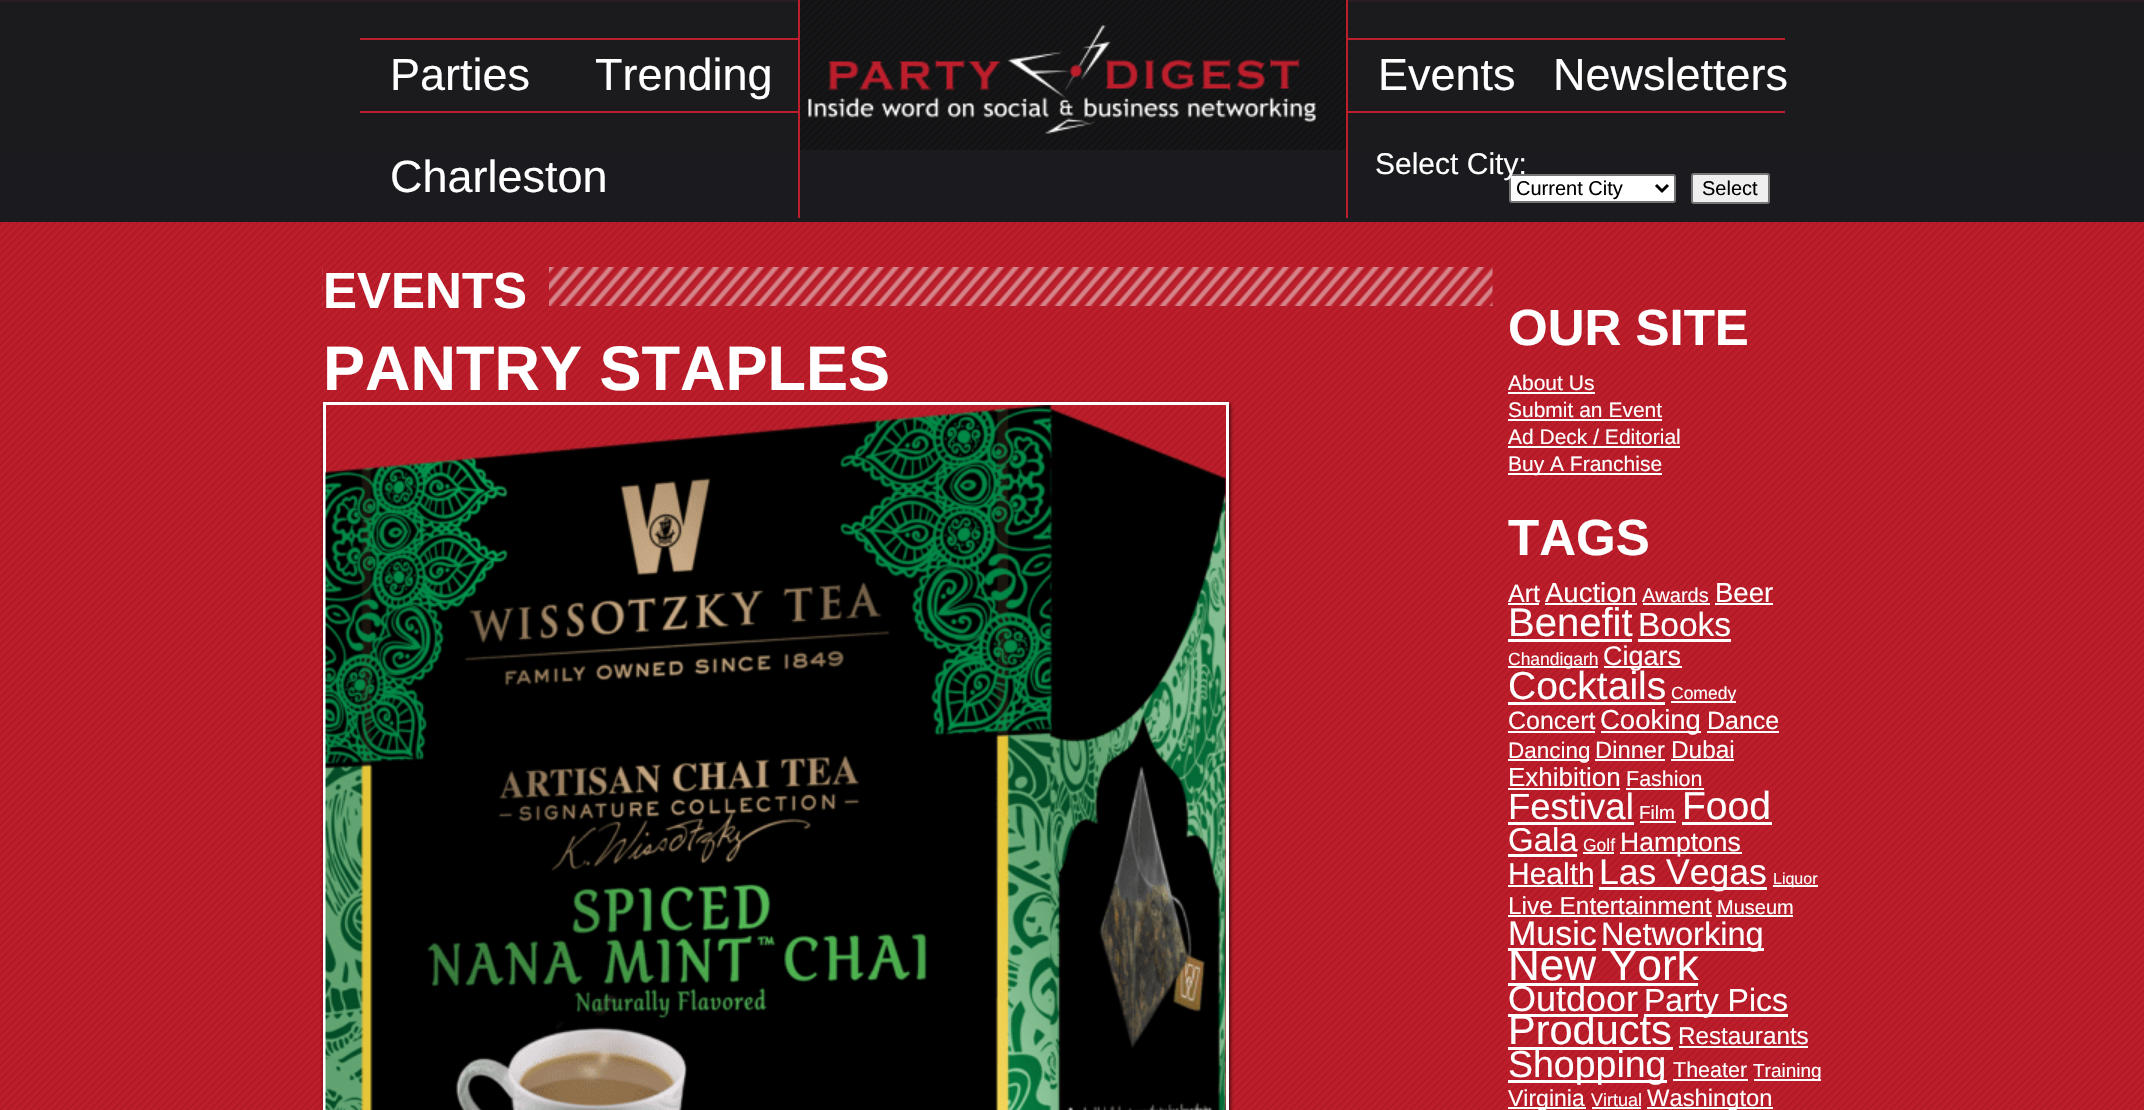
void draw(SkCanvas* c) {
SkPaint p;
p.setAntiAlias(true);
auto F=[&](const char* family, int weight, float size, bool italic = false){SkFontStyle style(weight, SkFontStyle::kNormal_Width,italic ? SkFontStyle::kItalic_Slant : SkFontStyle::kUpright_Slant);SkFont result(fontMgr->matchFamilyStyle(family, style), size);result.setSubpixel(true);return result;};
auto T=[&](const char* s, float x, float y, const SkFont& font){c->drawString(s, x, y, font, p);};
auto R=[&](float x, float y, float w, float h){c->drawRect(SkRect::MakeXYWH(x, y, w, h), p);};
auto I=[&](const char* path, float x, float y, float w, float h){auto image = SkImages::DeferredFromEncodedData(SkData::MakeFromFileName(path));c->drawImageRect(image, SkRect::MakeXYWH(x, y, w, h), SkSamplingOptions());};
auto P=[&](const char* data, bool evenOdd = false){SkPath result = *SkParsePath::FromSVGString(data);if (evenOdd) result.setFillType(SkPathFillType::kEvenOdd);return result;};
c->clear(0xffffffff);
I("1.png",0,222,2144,888);
p.setColor(0xff1b1b1f);
R(0,150,2144,72);
p.setColor(0xff1b1b1e);
R(0,2,2144,148);
p.setColor(0xff291d21);
R(0,0,2144,2);
p.setColor(0xffbd1e2c);
R(360,38,438,2);
R(360,111,438,2);
auto f1 = F("Liberation Sans",400,45);
p.setColor(0xffffffff);
T("Parties",390,90,f1);
T("Trending",595,90,f1);
I("2.png",800,0,546,150);
p.setColor(0xffbd1e2c);
R(1346,0,2,218);
R(798,0,2,218);
I("3.png",808,25,508,109);
R(1347,38,438,2);
R(1347,111,438,2);
p.setColor(0xffffffff);
T("Events",1378,90,f1);
T("Newsletters",1553,90,f1);
T("Charleston",390,192,f1);
c->drawRoundRect(SkRect::MakeXYWH(1510,175,165,27),2,2,p);
p.setStroke(true);
p.setStrokeWidth(2);
p.setColor(0xff767676);
c->drawRoundRect(SkRect::MakeXYWH(1510,175,165,27),2,2,p);
auto f2 = F("Liberation Sans",400,30);
p.setStroke(false);
p.setColor(0xffffffff);
T("Select City:",1375,174,f2);
p.setStroke(true);
p.setStrokeWidth(3);
p.setColor(0xff000000);
c->drawPath(P("M1656 185l6 6l6-6"),p);
auto f3 = F("Liberation Sans",400,20);
p.setStroke(false);
T("Current City",1516,195,f3);
p.setColor(0xffefefef);
c->drawRoundRect(SkRect::MakeXYWH(1692,174,77,29),2,2,p);
p.setStroke(true);
p.setStrokeWidth(2);
p.setColor(0xff767676);
c->drawRoundRect(SkRect::MakeXYWH(1692,174,77,29),2,2,p);
p.setStroke(false);
p.setColor(0xff000000);
T("Select",1702,195,f3);
I("4.png",322,267,1171,39);
p.setColor(0xffbd1e2c);
R(323,316,226,1);
I("5.png",322,263,227,54);
auto f4 = F("Liberation Sans",700,51);
p.setColor(0xffffffff);
T("EVENTS",323,308,f4);
auto f5 = F("Liberation Sans",700,63);
T("PANTRY STAPLES",323,390,f5);
c->save();
c->clipPath(P("M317 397h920v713h-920zm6 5h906v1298h-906z",true),true);
p.setColor(0xcc000000);
p.setMaskFilter(SkMaskFilter::MakeBlur(kNormal_SkBlurStyle, 2));
c->drawRect(SkRect::MakeXYWH(324,404,906,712),p);
p.setMaskFilter(nullptr);
c->restore();
p.setStroke(true);
p.setStrokeWidth(3);
p.setColor(0xffffffff);
c->drawRect(SkRect::MakeXYWH(324.5,403.5,903,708),p);
I("6.png",325,405,901,705);
p.setStroke(false);
T("OUR SITE",1508,345,f4);
auto f6 = F("Liberation Sans",400,21);
T("About Us",1508,390,f6);
R(1508,392,87,2);
T("Submit an Event",1508,417,f6);
R(1508,419,154,2);
T("Ad Deck / Editorial",1508,444,f6);
R(1508,446,172,2);
R(1508,473,154,2);
T("Buy A Franchise",1508,471,f6);
T("TAGS",1508,555,f4);
auto f7 = F("Liberation Sans",400,25);
T("Art",1508,602,f7);
R(1508,603,31,2);
auto f8 = F("Liberation Sans",400,27.5);
T("Auction",1545,602,f8);
R(1545,603,92,2);
T("Awards",1642,602,f3);
R(1643,603,67,2);
T("Beer",1715,602,f8);
R(1715,603,58,2);
auto f9 = F("Liberation Sans",400,40);
T("Benefit",1508,636,f9);
R(1508,639,124,3);
auto f10 = F("Liberation Sans",400,33.5);
T("Books",1638,636,f10);
R(1638,639,93,3);
R(1508,666,90,2);
auto f11 = F("Liberation Sans",400,17.5);
T("Chandigarh",1508,665,f11);
R(1604,666,78,2);
auto f12 = F("Liberation Sans",400,27);
T("Cigars",1603,665,f12);
auto f13 = F("Liberation Sans",400,39);
T("Cocktails",1508,699,f13);
R(1508,702,157,3);
R(1671,701,65,2);
T("Comedy",1671,699,f11);
T("Concert",1508,729,f7);
R(1508,731,87,2);
R(1601,731,100,2);
T("Cooking",1600,729,f8);
T("Dance",1707,729,f7);
R(1707,731,72,2);
R(1508,759,81,2);
auto f14 = F("Liberation Sans",400,22.5);
T("Dancing",1508,758,f14);
auto f15 = F("Liberation Sans",400,23.75);
T("Dinner",1595,758,f15);
R(1595,759,70,2);
auto f16 = F("Liberation Sans",400,24.4);
T("Dubai",1671,758,f16);
R(1671,759,63,2);
auto f17 = F("Liberation Sans",400,26);
T("Exhibition",1508,786,f17);
R(1508,788,112,2);
auto f18 = F("Liberation Sans",400,21.5);
T("Fashion",1626,786,f18);
R(1626,788,78,2);
auto f19 = F("Liberation Sans",400,36.5);
T("Festival",1508,819,f19);
R(1508,822,126,3);
auto f20 = F("Liberation Sans",400,19);
T("Film",1639,819,f20);
R(1640,821,36,2);
T("Food",1682,819,f13);
R(1682,822,90,3);
auto f21 = F("Liberation Sans",400,33);
T("Gala",1508,851,f21);
R(1508,854,69,3);
T("Golf",1583,851,f11);
R(1583,852,31,2);
R(1620,852,122,2);
auto f22 = F("Liberation Sans",400,26.5);
T("Hamptons",1620,851,f22);
T("Health",1508,884,f2);
R(1508,885,85,2);
R(1599,887,168,3);
auto f23 = F("Liberation Sans",400,35.5);
T("Las Vegas",1599,884,f23);
R(1773,885,45,2);
auto f24 = F("Liberation Sans",400,16);
T("Liquor",1773,884,f24);
T("Live Entertainment",1508,914,f16);
R(1508,915,204,2);
T("Museum",1717,914,f3);
R(1716,915,77,2);
auto f25 = F("Liberation Sans",400,34);
T("Music",1508,945,f25);
R(1508,948,88,3);
R(1602,948,162,3);
auto f26 = F("Liberation Sans",400,32.5);
T("Networking",1601,945,f26);
auto f27 = F("Liberation Sans",400,44);
T("New York",1508,980,f27);
R(1508,983,190,3);
auto f28 = F("Liberation Sans",400,36);
T("Outdoor",1508,1011,f28);
R(1508,1014,130,3);
R(1644,1014,144,3);
auto f29 = F("Liberation Sans",400,32);
T("Party Pics",1644,1011,f29);
auto f30 = F("Liberation Sans",400,41.5);
T("Products",1508,1044,f30);
R(1508,1047,165,3);
auto f31 = F("Liberation Sans",400,24.25);
T("Restaurants",1678,1044,f31);
R(1679,1046,129,2);
R(1508,1080,159,3);
auto f32 = F("Liberation Sans",400,37.5);
T("Shopping",1508,1077,f32);
T("Theater",1673,1077,f18);
R(1673,1079,75,2);
R(1754,1079,67,2);
T("Training",1753,1077,f20);
R(1508,1107,78,2);
auto f33 = F("Liberation Sans",400,23);
T("Virginia",1508,1106,f33);
auto f34 = F("Liberation Sans",400,18);
T("Virtual",1591,1106,f34);
R(1592,1107,49,2);
R(1647,1107,126,2);
T("Washington",1647,1106,f15);
}
